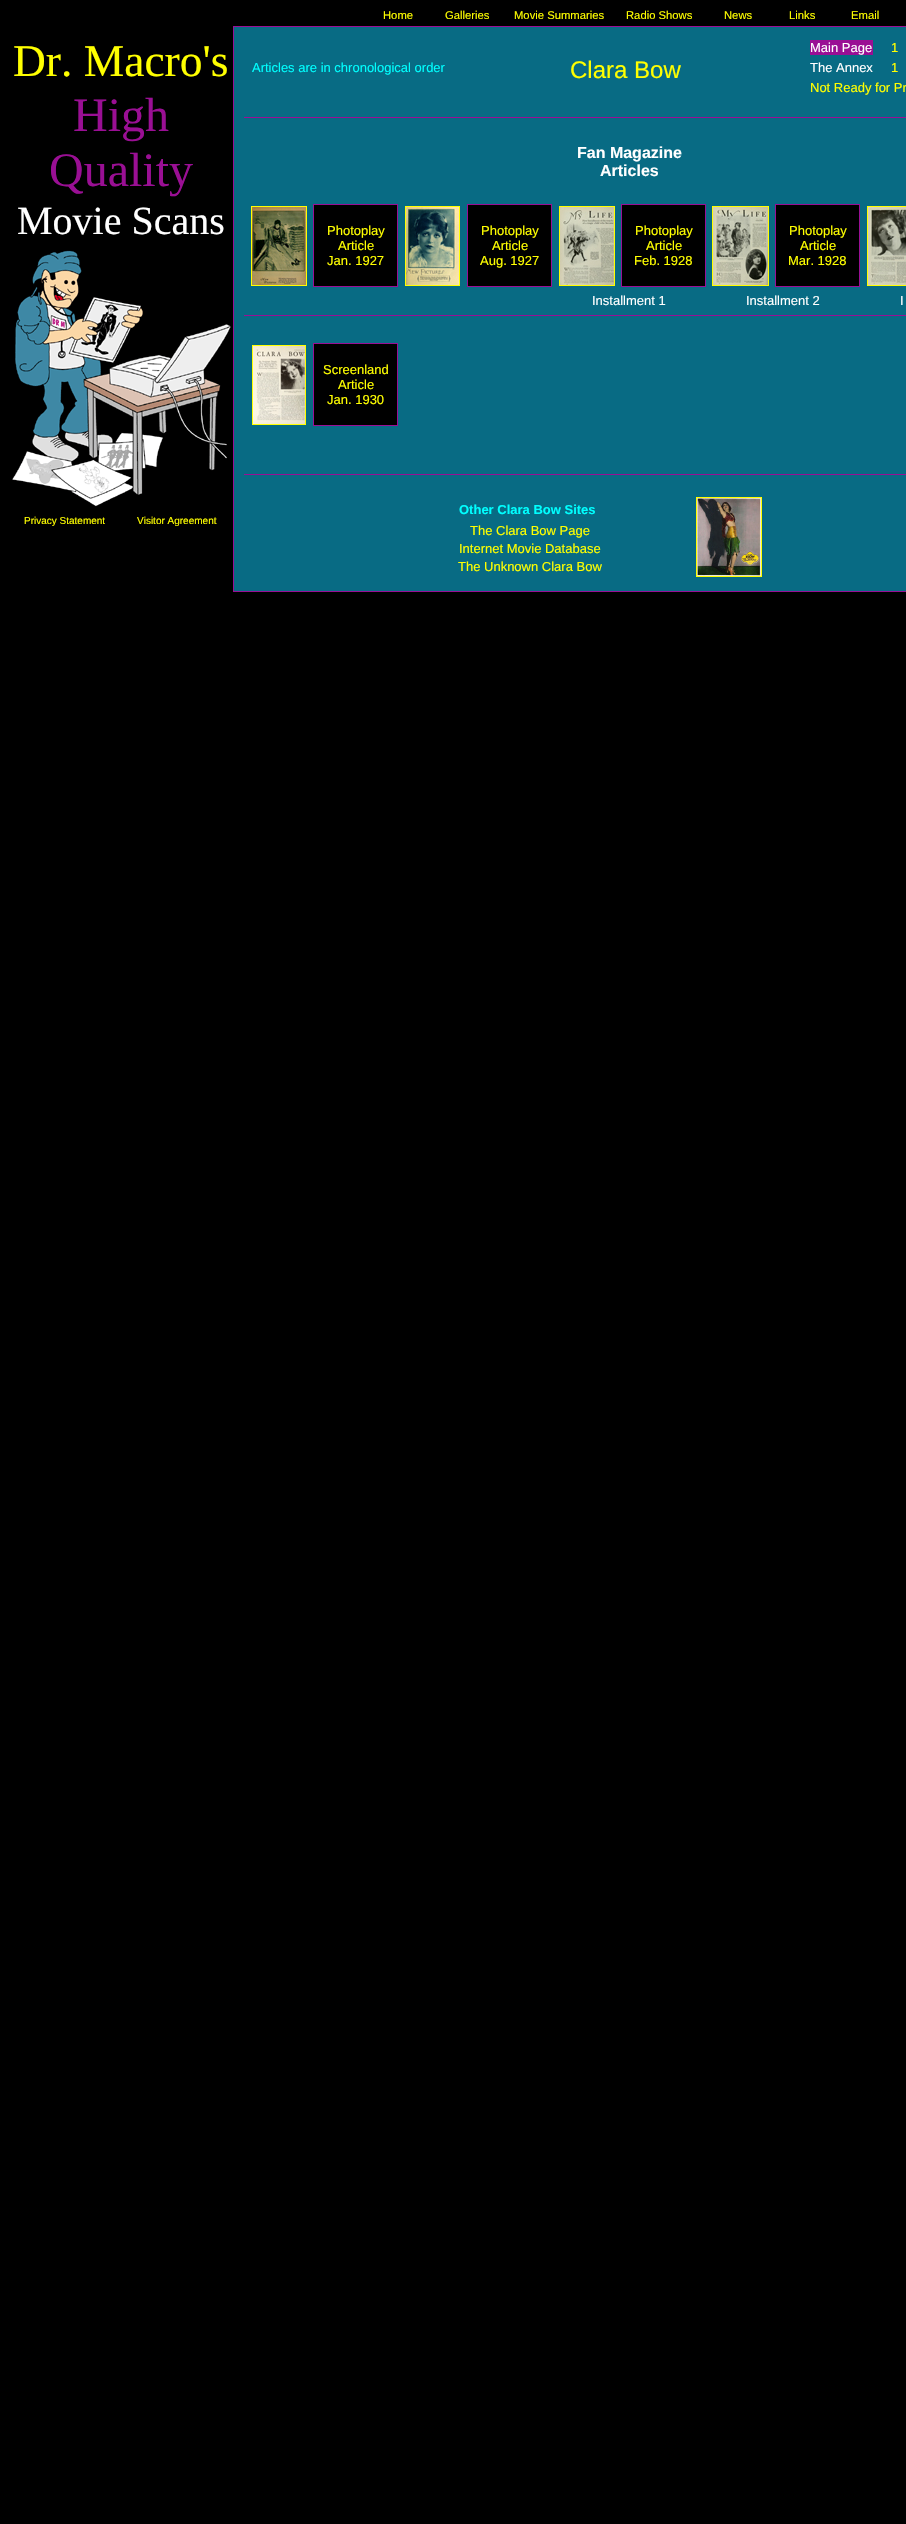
void draw(SkCanvas* c) {
SkPaint p;
p.setAntiAlias(true);
auto F=[&](const char* family, int weight, float size, bool italic = false){SkFontStyle style(weight, SkFontStyle::kNormal_Width,italic ? SkFontStyle::kItalic_Slant : SkFontStyle::kUpright_Slant);SkFont result(fontMgr->matchFamilyStyle(family, style), size);result.setSubpixel(true);return result;};
auto T=[&](const char* s, float x, float y, const SkFont& font){c->drawString(s, x, y, font, p);};
auto R=[&](float x, float y, float w, float h){c->drawRect(SkRect::MakeXYWH(x, y, w, h), p);};
auto I=[&](const char* path, float x, float y, float w, float h){auto image = SkImages::DeferredFromEncodedData(SkData::MakeFromFileName(path));c->drawImageRect(image, SkRect::MakeXYWH(x, y, w, h), SkSamplingOptions());};
c->clear(0xff000000);
auto f1 = F("Liberation Sans",400,11.25);
p.setColor(0xffffff00);
T("Home",383,19,f1);
T("Galleries",445,19,f1);
T("Movie Summaries",514,19,f1);
T("Radio Shows",626,19,f1);
T("News",724,19,f1);
T("Links",789,19,f1);
T("Email",851,19,f1);
auto f2 = F("Liberation Serif",400,45.5);
T("Dr. Macro's",13,76,f2);
auto f3 = F("Liberation Serif",400,48);
p.setColor(0xff9a0f94);
T("High",73,131,f3);
T("Quality",49,186,f3);
auto f4 = F("Liberation Serif",400,40);
p.setColor(0xffffffff);
T("Movie Scans",17,234,f4);
I("1.png",12,250,219,257);
auto f5 = F("Liberation Sans",400,10);
p.setColor(0xffffff00);
T("Privacy Statement",24,524,f5);
T("Visitor Agreement",137,524,f5);
p.setColor(0xff9a0f94);
R(233,26,673,1);
R(233,591,673,1);
R(233,26,1,566);
p.setColor(0xff086b84);
R(234,27,672,564);
auto f6 = F("Liberation Sans",400,13);
p.setColor(0xff00ffff);
T("Articles are in chronological order",252,72,f6);
auto f7 = F("Liberation Sans",400,24);
p.setColor(0xffffff00);
T("Clara Bow",570,78,f7);
p.setColor(0xff9a0f94);
R(810,40,63,15);
p.setColor(0xffffffff);
T("Main Page",810,52,f6);
p.setColor(0xffffff00);
T("1",891,52,f6);
p.setColor(0xffffffff);
T("The Annex",810,72,f6);
p.setColor(0xffffff00);
T("1",891,72,f6);
T("Not Ready for Pr",810,92,f6);
p.setColor(0xff9a0f94);
R(244,117,662,1);
auto f8 = F("Liberation Sans",700,16);
p.setColor(0xffffffff);
T("Fan Magazine",577,158,f8);
T("Articles",600,176,f8);
p.setColor(0xff9a0f94);
R(397,204,1,83);
p.setStroke(true);
p.setStrokeWidth(1);
p.setColor(0xffffff00);
c->drawRect(SkRect::MakeXYWH(251.5,206.5,55,79),p);
I("2.png",252,207,54,78);
p.setStroke(false);
p.setColor(0xff000000);
R(314,205,83,81);
p.setColor(0xff9a0f94);
R(313,204,85,1);
R(313,286,85,1);
R(313,204,1,83);
p.setColor(0xffffff00);
T("Photoplay",327,235,f6);
T("Article",338,250,f6);
T("Jan. 1927",327,265,f6);
p.setColor(0xff9a0f94);
R(551,204,1,83);
p.setStroke(true);
p.setColor(0xffffff00);
c->drawRect(SkRect::MakeXYWH(405.5,206.5,54,79),p);
I("3.png",406,207,53,78);
p.setStroke(false);
p.setColor(0xff000000);
R(468,205,83,81);
p.setColor(0xff9a0f94);
R(467,204,85,1);
R(467,286,85,1);
R(467,204,1,83);
p.setColor(0xffffff00);
T("Photoplay",481,235,f6);
T("Article",492,250,f6);
T("Aug. 1927",480,265,f6);
p.setColor(0xff9a0f94);
R(705,204,1,83);
p.setStroke(true);
p.setColor(0xffffff00);
c->drawRect(SkRect::MakeXYWH(559.5,206.5,55,79),p);
I("4.png",560,207,54,78);
p.setStroke(false);
p.setColor(0xff000000);
R(622,205,83,81);
p.setColor(0xff9a0f94);
R(621,204,85,1);
R(621,286,85,1);
R(621,204,1,83);
p.setColor(0xffffff00);
T("Photoplay",635,235,f6);
T("Article",646,250,f6);
T("Feb. 1928",634,265,f6);
p.setColor(0xff9a0f94);
R(859,204,1,83);
p.setStroke(true);
p.setColor(0xffffff00);
c->drawRect(SkRect::MakeXYWH(712.5,206.5,56,79),p);
I("5.png",713,207,55,78);
p.setStroke(false);
p.setColor(0xff000000);
R(776,205,83,81);
p.setColor(0xff9a0f94);
R(775,204,85,1);
R(775,286,85,1);
R(775,204,1,83);
p.setColor(0xffffff00);
T("Photoplay",789,235,f6);
T("Article",800,250,f6);
T("Mar. 1928",788,265,f6);
p.setStroke(true);
c->drawRect(SkRect::MakeXYWH(867.5,206.5,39,79),p);
I("6.png",868,207,38,78);
p.setStroke(false);
p.setColor(0xffffffff);
T("Installment 1",592,305,f6);
T("Installment 2",746,305,f6);
T("I",900,305,f6);
p.setColor(0xff9a0f94);
R(244,315,662,1);
R(397,343,1,83);
p.setStroke(true);
p.setColor(0xffffff00);
c->drawRect(SkRect::MakeXYWH(252.5,345.5,53,79),p);
I("7.png",253,346,52,78);
p.setStroke(false);
p.setColor(0xff000000);
R(314,344,83,81);
p.setColor(0xff9a0f94);
R(313,343,85,1);
R(313,425,85,1);
R(313,343,1,83);
p.setColor(0xffffff00);
T("Screenland",323,374,f6);
T("Article",338,389,f6);
T("Jan. 1930",327,404,f6);
p.setColor(0xff9a0f94);
R(244,474,662,1);
auto f9 = F("Liberation Sans",700,13);
p.setColor(0xff00ffff);
T("Other Clara Bow Sites",459,514,f9);
p.setColor(0xffffff00);
T("The Clara Bow Page",470,535,f6);
T("Internet Movie Database",459,553,f6);
T("The Unknown Clara Bow",458,571,f6);
p.setStroke(true);
c->drawRect(SkRect::MakeXYWH(696.5,497.5,65,79),p);
I("8.png",697,498,64,78);
}
